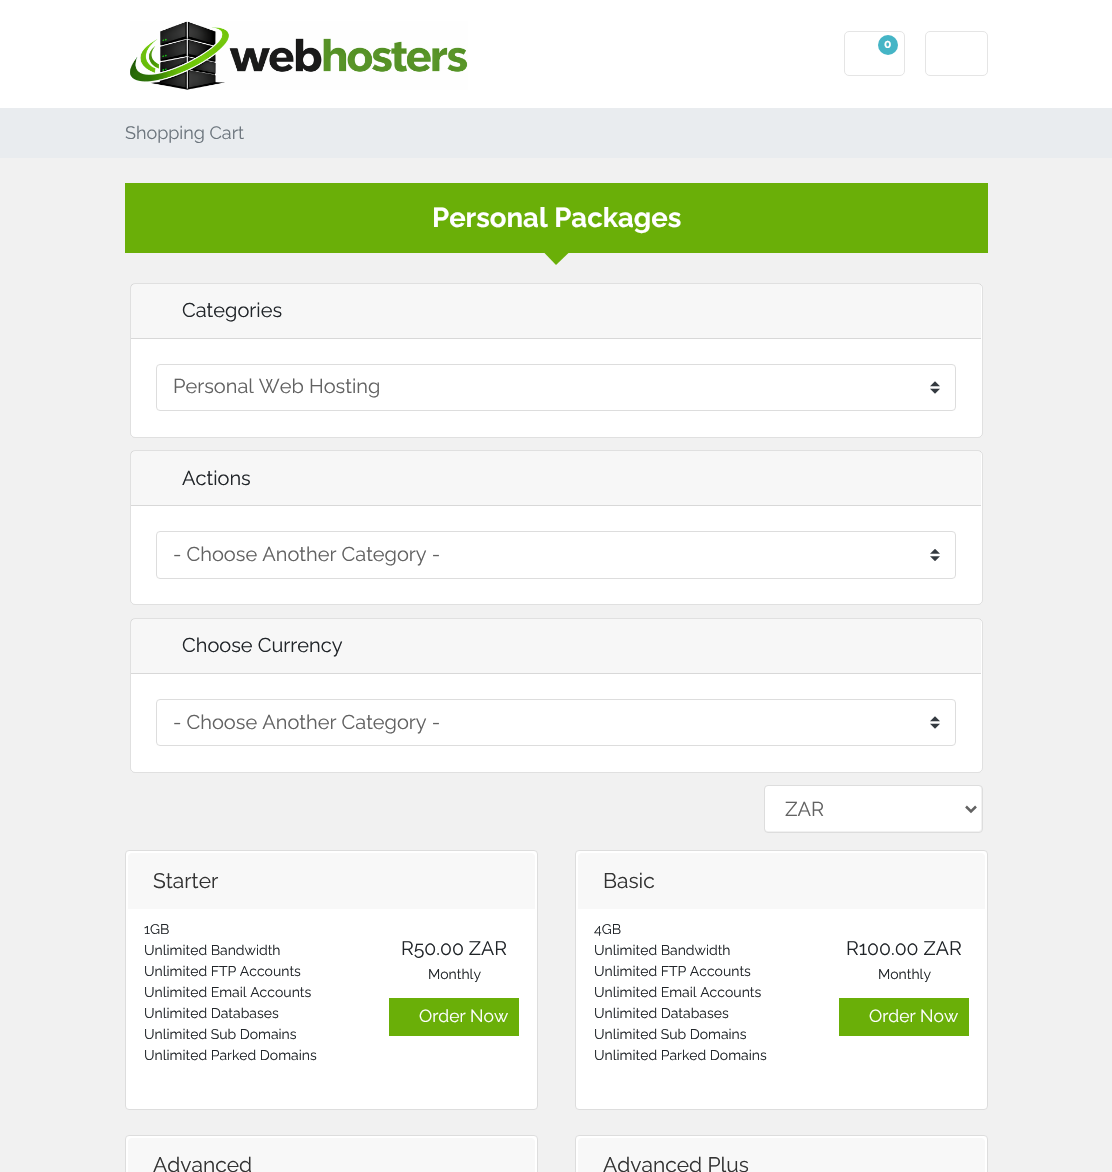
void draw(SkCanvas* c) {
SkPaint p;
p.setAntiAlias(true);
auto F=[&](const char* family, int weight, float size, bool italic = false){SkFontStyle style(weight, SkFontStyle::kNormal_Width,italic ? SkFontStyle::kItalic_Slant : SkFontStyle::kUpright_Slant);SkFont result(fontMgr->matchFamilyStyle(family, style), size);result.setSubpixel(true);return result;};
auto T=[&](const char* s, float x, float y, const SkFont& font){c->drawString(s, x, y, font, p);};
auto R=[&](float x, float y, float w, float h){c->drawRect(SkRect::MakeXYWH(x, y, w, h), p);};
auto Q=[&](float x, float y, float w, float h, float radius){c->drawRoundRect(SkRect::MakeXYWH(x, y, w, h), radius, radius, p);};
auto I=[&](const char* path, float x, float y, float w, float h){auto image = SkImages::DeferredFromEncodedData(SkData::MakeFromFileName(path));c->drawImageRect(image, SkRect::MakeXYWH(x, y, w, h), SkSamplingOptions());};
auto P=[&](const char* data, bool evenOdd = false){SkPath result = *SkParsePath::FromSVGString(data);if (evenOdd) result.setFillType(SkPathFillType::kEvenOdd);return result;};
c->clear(0xfff1f1f1);
p.setColor(0xffffffff);
R(0,0,1112,108);
I("1.png",130,21,338,69);
p.setStroke(true);
p.setStrokeWidth(1);
p.setColor(0xffe5e5e5);
c->drawRoundRect(SkRect::MakeXYWH(844.5,31.5,60,44),4.5,4.5,p);
p.setStroke(false);
p.setColor(0xff45b5c6);
c->drawCircle(888,45,10,p);
auto f1 = F("Raleway",700,12);
p.setColor(0xffffffff);
T("0",884,48,f1);
p.setStroke(true);
p.setColor(0xffe5e5e5);
c->drawRoundRect(SkRect::MakeXYWH(925.5,31.5,62,44),4.5,4.5,p);
p.setStroke(false);
p.setColor(0xffe9ecef);
R(0,108,1112,50);
auto f2 = F("Raleway",400,18);
p.setColor(0xff6c757d);
T("Shopping Cart",125,139,f2);
p.setColor(0xff6aaf08);
R(125,183,863,70);
auto f3 = F("Raleway",700,27.5);
p.setColor(0xffffffff);
T("Personal Packages",432,227,f3);
p.setColor(0xff6aaf08);
c->drawPath(P("M544 252.5h25l-13 12.5z"),p);
p.setColor(0xffffffff);
Q(130,283,853,155,5);
p.setStroke(true);
p.setColor(0x1f000000);
c->drawRoundRect(SkRect::MakeXYWH(130.5,283.5,852,154),4.5,4.5,p);
p.setStroke(false);
p.setColor(0x08000000);
R(131,284,850,54);
p.setColor(0xffd8d8d8);
R(131,338,850,1);
auto f4 = F("Raleway",400,20);
p.setColor(0xff212529);
T("Categories",182,317,f4);
I("2.png",930,381,10,13);
p.setStroke(true);
p.setColor(0xffdddddd);
c->drawRoundRect(SkRect::MakeXYWH(156.5,364.5,799,46),3.5,3.5,p);
p.setStroke(false);
p.setColor(0xff626262);
T("Personal Web Hosting",173,393,f4);
p.setColor(0xffffffff);
Q(130,450,853,155,5);
p.setStroke(true);
p.setColor(0x1f000000);
c->drawRoundRect(SkRect::MakeXYWH(130.5,450.5,852,154),4.5,4.5,p);
p.setStroke(false);
p.setColor(0x08000000);
R(131,451,850,54);
p.setColor(0xffd8d8d8);
R(131,505,850,1);
p.setColor(0xff212529);
T("Actions",182,485,f4);
I("3.png",930,549,10,12);
p.setStroke(true);
p.setColor(0xffdddddd);
c->drawRoundRect(SkRect::MakeXYWH(156.5,531.5,799,47),3.5,3.5,p);
p.setStroke(false);
p.setColor(0xff626262);
T("- Choose Another Category -",173,561,f4);
p.setColor(0xffffffff);
Q(130,618,853,155,5);
p.setStroke(true);
p.setColor(0x1f000000);
c->drawRoundRect(SkRect::MakeXYWH(130.5,618.5,852,154),4.5,4.5,p);
p.setStroke(false);
p.setColor(0x08000000);
R(131,619,850,54);
p.setColor(0xffd8d8d8);
R(131,673,850,1);
p.setColor(0xff212529);
T("Choose Currency",182,652,f4);
I("2.png",930,716,10,13);
p.setStroke(true);
p.setColor(0xffdddddd);
c->drawRoundRect(SkRect::MakeXYWH(156.5,699.5,799,46),3.5,3.5,p);
p.setStroke(false);
p.setColor(0xff626262);
T("- Choose Another Category -",173,729,f4);
p.setColor(0xffffffff);
Q(765,786,216,45,2.5);
p.setStroke(true);
p.setColor(0xffdddddd);
c->drawRoundRect(SkRect::MakeXYWH(764.5,785.5,218,47),3.5,3.5,p);
p.setStrokeWidth(2.5);
p.setColor(0xff626262);
c->drawPath(P("M966 806.5l5 5l5-5"),p);
p.setStroke(false);
T("ZAR",785,816,f4);
p.setColor(0xffffffff);
c->drawRoundRect(SkRect::MakeXYWH(125.5,850.5,412,259),3.5,3.5,p);
p.setStroke(true);
p.setStrokeWidth(1);
p.setColor(0xffdddddd);
c->drawRoundRect(SkRect::MakeXYWH(125.5,850.5,412,259),3.5,3.5,p);
p.setStroke(false);
p.setColor(0xfff8f8f8);
c->drawPath(P("M132 853h399c2 0 4 2 4 4v52h-407v-52c0-2 2-4 4-4z"),p);
auto f5 = F("Raleway",400,21);
p.setColor(0xff333333);
T("Starter",153,888,f5);
auto f6 = F("Raleway",400,14);
p.setColor(0xff212529);
T("1GB",144,934,f6);
T("Unlimited Bandwidth",144,955,f6);
T("Unlimited FTP Accounts",144,976,f6);
T("Unlimited Email Accounts",144,997,f6);
T("Unlimited Databases",144,1018,f6);
T("Unlimited Sub Domains",144,1039,f6);
T("Unlimited Parked Domains",144,1060,f6);
auto f7 = F("Raleway",400,19.5);
T("R50.00 ZAR",401,955,f7);
T("Monthly",428,979,f6);
p.setColor(0xff6aaf08);
R(389,998,130,38);
auto f8 = F("Raleway",400,17.5);
p.setColor(0xffffffff);
T("Order Now",419,1022,f8);
c->drawRoundRect(SkRect::MakeXYWH(575.5,850.5,412,259),3.5,3.5,p);
p.setStroke(true);
p.setColor(0xffdddddd);
c->drawRoundRect(SkRect::MakeXYWH(575.5,850.5,412,259),3.5,3.5,p);
p.setStroke(false);
p.setColor(0xfff8f8f8);
c->drawPath(P("M582 853h399c2 0 4 2 4 4v52h-407v-52c0-2 2-4 4-4z"),p);
p.setColor(0xff333333);
T("Basic",603,888,f5);
p.setColor(0xff212529);
T("4GB",594,934,f6);
T("Unlimited Bandwidth",594,955,f6);
T("Unlimited FTP Accounts",594,976,f6);
T("Unlimited Email Accounts",594,997,f6);
T("Unlimited Databases",594,1018,f6);
T("Unlimited Sub Domains",594,1039,f6);
T("Unlimited Parked Domains",594,1060,f6);
T("R100.00 ZAR",846,955,f7);
T("Monthly",878,979,f6);
p.setColor(0xff6aaf08);
R(839,998,130,38);
p.setColor(0xffffffff);
T("Order Now",869,1022,f8);
c->drawRoundRect(SkRect::MakeXYWH(125.5,1135.5,412,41),3.5,3.5,p);
p.setStroke(true);
p.setColor(0xffdddddd);
c->drawRoundRect(SkRect::MakeXYWH(125.5,1135.5,412,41),3.5,3.5,p);
p.setStroke(false);
p.setColor(0xfff8f8f8);
c->drawPath(P("M132 1138h399c2 0 4 2 4 4v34h-407v-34c0-2 2-4 4-4z"),p);
p.setColor(0xff333333);
T("Advanced",153,1172,f5);
p.setColor(0xffffffff);
c->drawRoundRect(SkRect::MakeXYWH(575.5,1135.5,412,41),3.5,3.5,p);
p.setStroke(true);
p.setColor(0xffdddddd);
c->drawRoundRect(SkRect::MakeXYWH(575.5,1135.5,412,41),3.5,3.5,p);
p.setStroke(false);
p.setColor(0xfff8f8f8);
c->drawPath(P("M582 1138h399c2 0 4 2 4 4v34h-407v-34c0-2 2-4 4-4z"),p);
p.setColor(0xff333333);
T("Advanced Plus",603,1172,f5);
}
